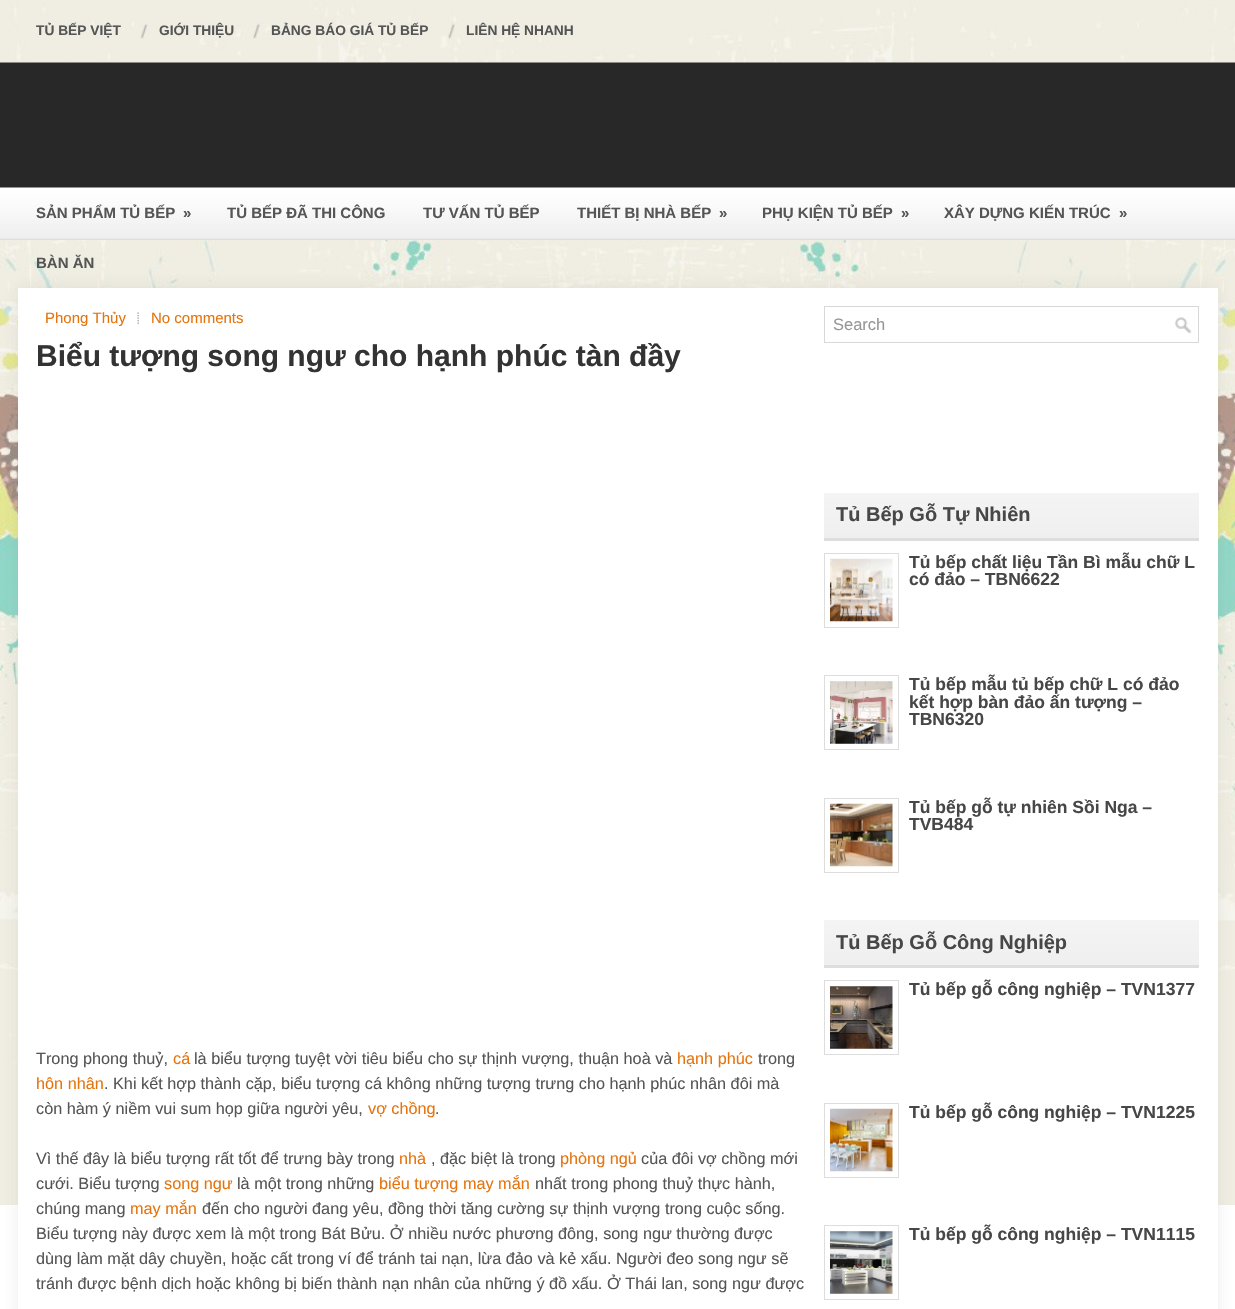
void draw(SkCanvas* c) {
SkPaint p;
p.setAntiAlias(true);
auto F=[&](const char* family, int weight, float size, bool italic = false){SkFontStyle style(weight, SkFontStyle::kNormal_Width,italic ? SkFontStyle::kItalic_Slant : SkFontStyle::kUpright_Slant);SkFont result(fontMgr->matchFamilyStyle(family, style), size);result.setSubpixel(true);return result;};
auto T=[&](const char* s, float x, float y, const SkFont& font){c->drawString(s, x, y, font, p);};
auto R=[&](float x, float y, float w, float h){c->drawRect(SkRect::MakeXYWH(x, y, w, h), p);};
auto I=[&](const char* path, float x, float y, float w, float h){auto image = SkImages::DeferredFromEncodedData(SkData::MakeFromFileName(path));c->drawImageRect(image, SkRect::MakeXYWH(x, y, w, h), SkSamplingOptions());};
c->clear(0xffffffff);
I("1.png",0,0,1235,1205);
auto f1 = F("Liberation Sans",700,13.75);
p.setColor(0xff555555);
T("TỦ BẾP VIỆT",36,35,f1);
I("2.png",140,24,8,15);
T("GIỚI THIỆU",159,35,f1);
I("3.png",253,23,7,16);
T("BẢNG BÁO GIÁ TỦ BẾP",271,35,f1);
I("4.png",448,23,7,16);
T("LIÊN HỆ NHANH",466,35,f1);
auto f2 = F("Liberation Sans",700,15);
T("SẢN PHẨM TỦ BẾP",36,218,f2);
T("»",183,218,f2);
T("TỦ BẾP ĐÃ THI CÔNG",227,218,f2);
T("TƯ VẤN TỦ BẾP",423,218,f2);
T("THIẾT BỊ NHÀ BẾP",577,218,f2);
T("»",719,218,f2);
T("PHỤ KIỆN TỦ BẾP",762,218,f2);
T("»",901,218,f2);
T("XÂY DỰNG KIẾN TRÚC",944,218,f2);
T("»",1119,218,f2);
p.setColor(0x1a434341);
p.setMaskFilter(SkMaskFilter::MakeBlur(kNormal_SkBlurStyle, 8));
c->drawRect(SkRect::MakeXYWH(18,288,1200,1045),p);
p.setMaskFilter(nullptr);
p.setColor(0xff555555);
T("BÀN ĂN",36,268,f2);
p.setColor(0xffffffff);
R(18,288,1200,1021);
auto f3 = F("Liberation Sans",400,15);
p.setColor(0xffe5740d);
T("Phong Thủy",45,323,f3);
I("5.png",137,312,2,12);
T("No comments",151,323,f3);
auto f4 = F("Liberation Sans",700,30);
p.setColor(0xff333333);
T("Biểu tượng song ngư cho hạnh phúc tàn đầy",36,366,f4);
auto f5 = F("Liberation Sans",400,16.25);
p.setColor(0xff555555);
T("Trong phong thuỷ,",36,1064,f5);
p.setColor(0xffe5740d);
T("cá",173,1064,f5);
p.setColor(0xff555555);
T("là biểu tượng tuyệt vời tiêu biểu cho sự thịnh vượng, thuận hoà và",194,1064,f5);
p.setColor(0xffe5740d);
T("hạnh phúc",677,1064,f5);
p.setColor(0xff555555);
T("trong",758,1064,f5);
p.setColor(0xffe5740d);
T("hôn nhân",36,1089,f5);
p.setColor(0xff555555);
T(". Khi kết hợp thành cặp, biểu tượng cá không những tượng trưng cho hạnh phúc nhân đôi mà",104,1089,f5);
T("còn hàm ý niềm vui sum họp giữa người yêu,",36,1114,f5);
p.setColor(0xffe5740d);
T("vợ chồng",368,1114,f5);
p.setColor(0xff555555);
T(".",435,1114,f5);
T("Vì thế đây là biểu tượng rất tốt để trưng bày trong",36,1164,f5);
p.setColor(0xffe5740d);
T("nhà",399,1164,f5);
p.setColor(0xff555555);
T(", đặc biệt là trong",431,1164,f5);
p.setColor(0xffe5740d);
T("phòng ngủ",560,1164,f5);
p.setColor(0xff555555);
T("của đôi vợ chồng mới",641,1164,f5);
T("cưới. Biểu tượng",36,1189,f5);
p.setColor(0xffe5740d);
T("song ngư",164,1189,f5);
p.setColor(0xff555555);
T("là một trong những",237,1189,f5);
p.setColor(0xffe5740d);
T("biểu tượng may mắn",379,1189,f5);
p.setColor(0xff555555);
T("nhất trong phong thuỷ thực hành,",535,1189,f5);
T("chúng mang",36,1214,f5);
p.setColor(0xffe5740d);
T("may mắn",130,1214,f5);
p.setColor(0xff555555);
T("đến cho người đang yêu, đồng thời tăng cường sự thịnh vượng trong cuộc sống.",202,1214,f5);
T("Biểu tượng này được xem là một trong Bát Bửu. Ở nhiều nước phương đông, song ngư thường được",36,1239,f5);
T("dùng làm mặt dây chuyền, hoặc cất trong ví để tránh tai nạn, lừa đảo và kẻ xấu. Người đeo song ngư sẽ",36,1264,f5);
T("tránh được bệnh dịch hoặc không bị biến thành nạn nhân của những ý đồ xấu. Ở Thái lan, song ngư được",36,1289,f5);
I("6.png",1175,317,17,17);
p.setStroke(true);
p.setStrokeWidth(1);
p.setColor(0xffd8d8d8);
c->drawRect(SkRect::MakeXYWH(824.5,306.5,374,36),p);
auto f6 = F("Liberation Sans",400,16.5);
p.setStroke(false);
p.setColor(0xff979797);
T("Search",833,330,f6);
{
const SkColor colors[] = {0xfff4f4f4,0xffefefef};
const float stops[] = {0,1};
const SkPoint ends[] = {{1011,493}, {1011,538}};
p.setShader(SkGradientShader::MakeLinear(ends, colors, stops, 2, SkTileMode::kClamp));
p.setAlpha(255);
}
R(824,493,375,45);
p.setShader(nullptr);
p.setColor(0xffdddddd);
R(824,538,375,3);
auto f7 = F("Liberation Sans",700,20);
p.setColor(0xff474747);
T("Tủ Bếp Gỗ Tự Nhiên",836,521,f7);
p.setStroke(true);
p.setColor(0xffdddddd);
c->drawRect(SkRect::MakeXYWH(824.5,553.5,74,74),p);
I("7.png",830,558,63,64);
auto f8 = F("Liberation Sans",700,17.5);
p.setStroke(false);
p.setColor(0xff474747);
T("Tủ bếp chất liệu Tần Bì mẫu chữ L",909,568,f8);
T("có đảo – TBN6622",909,585,f8);
p.setStroke(true);
p.setColor(0xffdddddd);
c->drawRect(SkRect::MakeXYWH(824.5,675.5,74,74),p);
I("8.png",830,681,63,63);
p.setStroke(false);
p.setColor(0xff474747);
T("Tủ bếp mẫu tủ bếp chữ L có đảo",909,690,f8);
T("kết hợp bàn đảo ấn tượng –",909,708,f8);
T("TBN6320",909,725,f8);
p.setStroke(true);
p.setColor(0xffdddddd);
c->drawRect(SkRect::MakeXYWH(824.5,798.5,74,74),p);
I("9.png",830,803,63,64);
p.setStroke(false);
p.setColor(0xff474747);
T("Tủ bếp gỗ tự nhiên Sồi Nga –",909,813,f8);
T("TVB484",909,830,f8);
{
const SkColor colors[] = {0xfff4f4f4,0xffefefef};
const float stops[] = {0,1};
const SkPoint ends[] = {{1011,920}, {1011,965}};
p.setShader(SkGradientShader::MakeLinear(ends, colors, stops, 2, SkTileMode::kClamp));
p.setAlpha(255);
}
R(824,920,375,45);
p.setShader(nullptr);
p.setColor(0xffdddddd);
R(824,965,375,3);
p.setColor(0xff474747);
T("Tủ Bếp Gỗ Công Nghiệp",836,949,f7);
p.setStroke(true);
p.setColor(0xffdddddd);
c->drawRect(SkRect::MakeXYWH(824.5,980.5,74,74),p);
I("10.png",830,986,63,63);
p.setStroke(false);
p.setColor(0xff474747);
T("Tủ bếp gỗ công nghiệp – TVN1377",909,995,f8);
p.setStroke(true);
p.setColor(0xffdddddd);
c->drawRect(SkRect::MakeXYWH(824.5,1103.5,74,74),p);
I("11.png",830,1108,63,64);
p.setStroke(false);
p.setColor(0xff474747);
T("Tủ bếp gỗ công nghiệp – TVN1225",909,1118,f8);
p.setStroke(true);
p.setColor(0xffdddddd);
c->drawRect(SkRect::MakeXYWH(824.5,1225.5,74,74),p);
I("12.png",830,1231,63,63);
p.setStroke(false);
p.setColor(0xff474747);
T("Tủ bếp gỗ công nghiệp – TVN1115",909,1240,f8);
}
